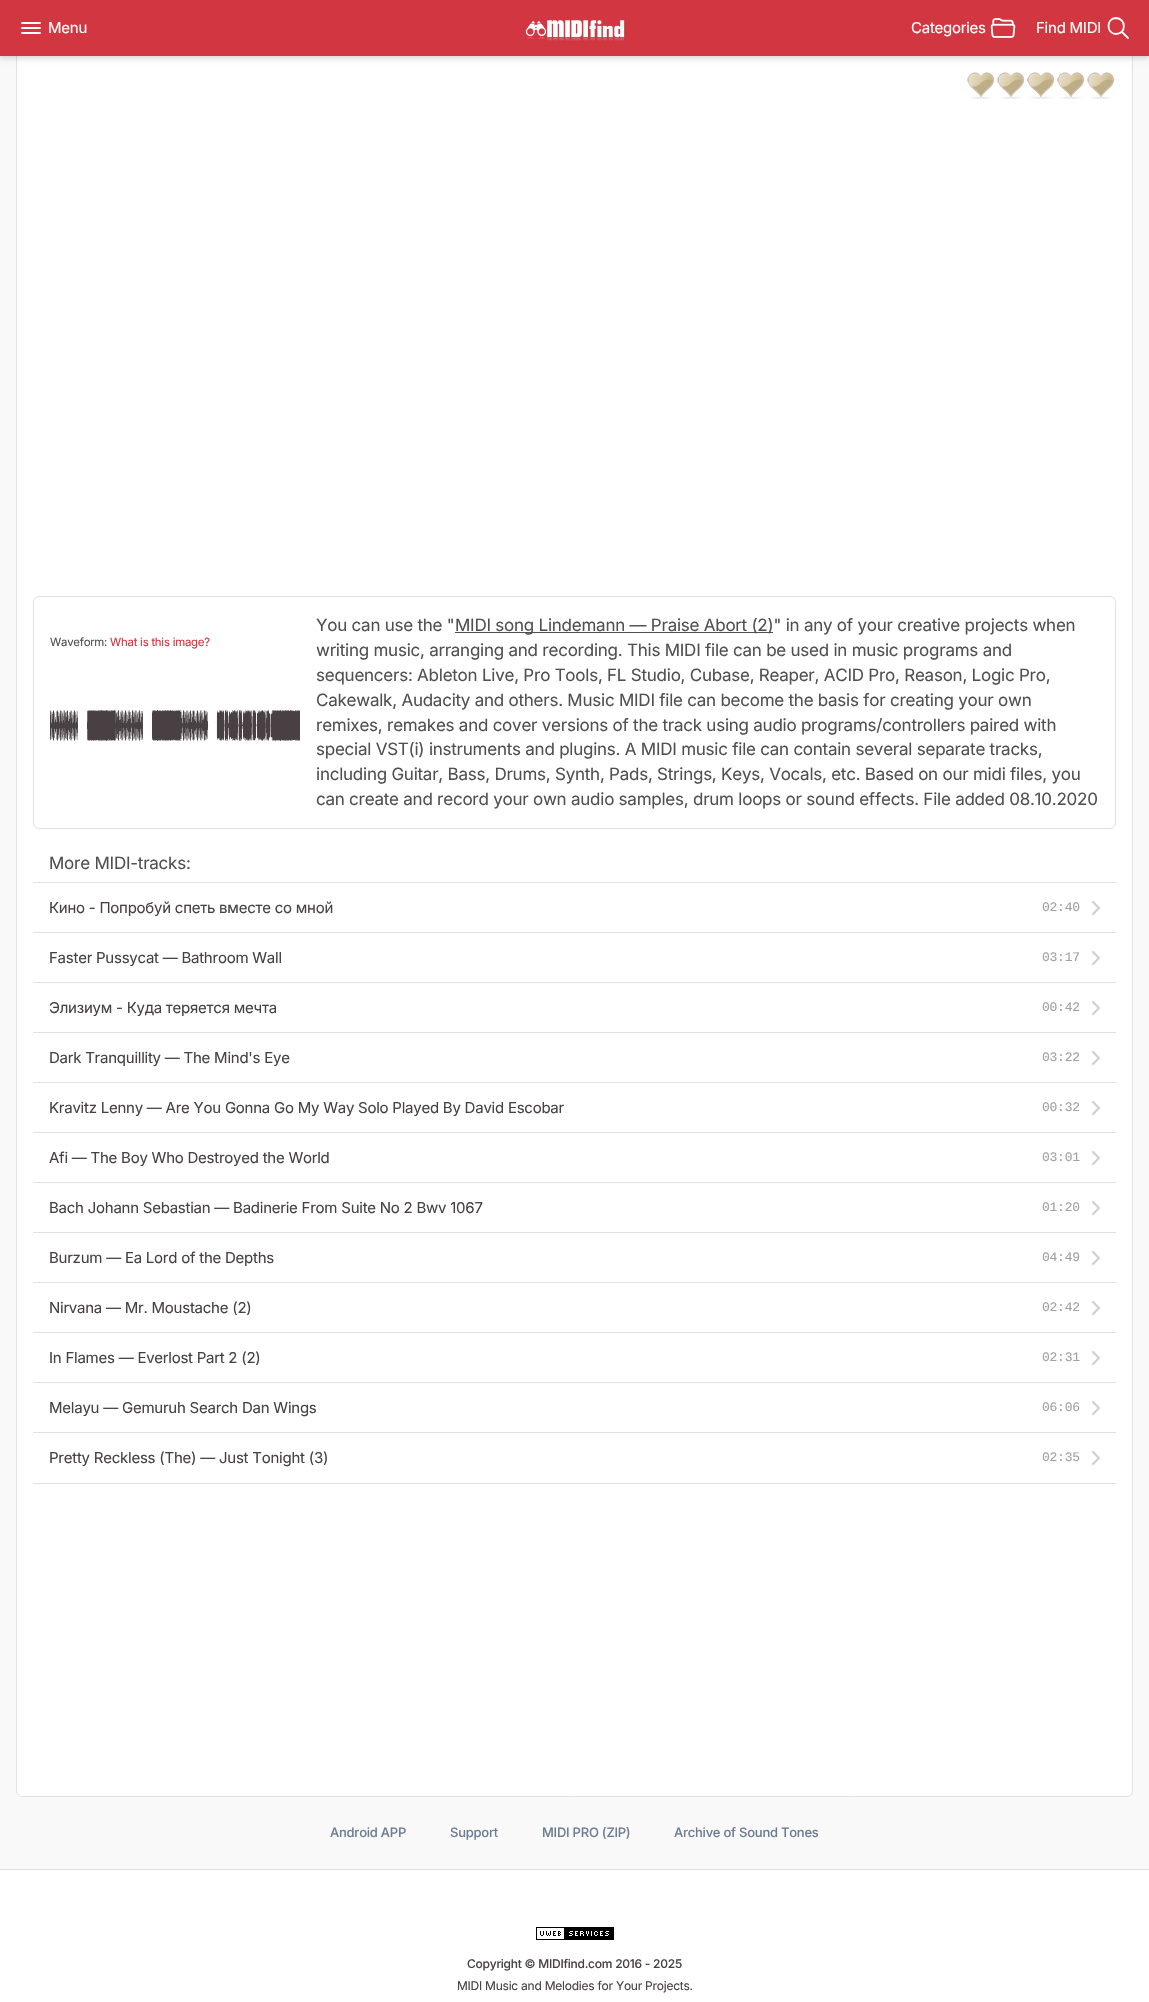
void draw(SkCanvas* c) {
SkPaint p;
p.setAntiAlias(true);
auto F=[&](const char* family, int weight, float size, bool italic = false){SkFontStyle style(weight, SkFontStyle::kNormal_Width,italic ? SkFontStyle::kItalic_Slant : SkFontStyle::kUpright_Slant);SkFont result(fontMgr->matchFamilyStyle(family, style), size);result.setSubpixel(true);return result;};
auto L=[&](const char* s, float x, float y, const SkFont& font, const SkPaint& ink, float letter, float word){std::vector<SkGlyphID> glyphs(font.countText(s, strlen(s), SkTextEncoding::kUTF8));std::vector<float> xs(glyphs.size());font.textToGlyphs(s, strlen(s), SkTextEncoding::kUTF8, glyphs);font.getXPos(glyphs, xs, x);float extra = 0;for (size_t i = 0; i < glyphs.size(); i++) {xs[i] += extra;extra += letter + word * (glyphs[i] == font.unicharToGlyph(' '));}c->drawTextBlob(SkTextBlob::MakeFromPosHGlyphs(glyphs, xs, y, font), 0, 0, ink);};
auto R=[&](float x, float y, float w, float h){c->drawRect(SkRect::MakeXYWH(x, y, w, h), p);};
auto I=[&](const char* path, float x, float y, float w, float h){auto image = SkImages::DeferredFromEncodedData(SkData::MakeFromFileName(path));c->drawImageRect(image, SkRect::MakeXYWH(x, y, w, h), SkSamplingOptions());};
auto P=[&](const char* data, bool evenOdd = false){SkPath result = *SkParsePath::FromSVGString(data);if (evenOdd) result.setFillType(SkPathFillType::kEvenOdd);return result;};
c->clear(0xfff9f9f9);
p.setColor(0xffffffff);
c->drawRoundRect(SkRect::MakeXYWH(16.5,-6.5,1116,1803),5.5,5.5,p);
p.setStroke(true);
p.setStrokeWidth(1);
p.setColor(0xffe1e1e1);
c->drawRoundRect(SkRect::MakeXYWH(16.5,-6.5,1116,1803),5.5,5.5,p);
p.setStroke(false);
p.setColor(0x14000000);
p.setMaskFilter(SkMaskFilter::MakeBlur(kNormal_SkBlurStyle, 1.5));
c->drawRect(SkRect::MakeXYWH(0,1,1149,56),p);
p.setMaskFilter(nullptr);
p.setColor(0x1a000000);
p.setMaskFilter(SkMaskFilter::MakeBlur(kNormal_SkBlurStyle, 3));
c->drawRect(SkRect::MakeXYWH(0,3,1149,56),p);
p.setMaskFilter(nullptr);
p.setColor(0xffd23641);
R(0,0,1149,56);
p.setStroke(true);
p.setStrokeWidth(1.8);
p.setStrokeCap(SkPaint::kRound_Cap);
p.setColor(0xffffffff);
c->drawPath(P("M22 23h18m-18 5h18m-18 5h18"),p);
auto f1 = F("Inter",400,15);
p.setStroke(false);
L("Menu",48,33,f1,p,-.24,0);
I("1.png",525,20,100,21);
L("Categories",911,33,f1,p,-.24,0);
I("2.png",990,18,26,20);
L("Find MIDI",1036,33,f1,p,-.24,0);
p.setStroke(true);
p.setStrokeCap(SkPaint::kButt_Cap);
c->drawPath(P("M1116 18c-10 0-10 16 0 16c10.5 0 10.5-15.5 0-16z"),p);
p.setStrokeCap(SkPaint::kRound_Cap);
c->drawPath(P("M1122 32l6 6"),p);
I("3.png",967,72,148,27);
p.setStrokeWidth(1);
p.setStrokeCap(SkPaint::kButt_Cap);
p.setColor(0xffe1e1e1);
c->drawRoundRect(SkRect::MakeXYWH(33.5,596.5,1082,232),5.5,5.5,p);
auto f2 = F("Inter",400,11.4);
p.setStroke(false);
p.setColor(0xff4f5050);
L("Waveform:",50,646,f2,p,-.24,0);
p.setColor(0xffd23641);
L("What is this image?",110,646,f2,p,-.24,0);
I("4.png",50,710,250,31);
auto f3 = F("Inter",400,17);
p.setColor(0xff4f5050);
L("You can use the \"",316,631,f3,p,-.24,0);
R(455,632,318,1);
L("MIDI song Lindemann — Praise Abort (2)\" in any of your creative projects when",455,631,f3,p,-.24,0);
L("writing music, arranging and recording. This MIDI file can be used in music programs and",316,656,f3,p,-.24,0);
L("sequencers: Ableton Live, Pro Tools, FL Studio, Cubase, Reaper, ACID Pro, Reason, Logic Pro,",316,681,f3,p,-.24,0);
L("Cakewalk, Audacity and others. Music MIDI file can become the basis for creating your own",316,706,f3,p,-.24,0);
L("remixes, remakes and cover versions of the track using audio programs/controllers paired with",316,731,f3,p,-.24,0);
L("special VST(i) instruments and plugins. A MIDI music file can contain several separate tracks,",316,755,f3,p,-.24,0);
L("including Guitar, Bass, Drums, Synth, Pads, Strings, Keys, Vocals, etc. Based on our midi files, you",316,780,f3,p,-.24,0);
L("can create and record your own audio samples, drum loops or sound effects. File added 08.10.2020",316,805,f3,p,-.24,0);
L("More MIDI-tracks:",49,869,f3,p,-.24,0);
p.setColor(0xffe1e1e1);
R(33,882,1083,1);
R(33,1483,1083,1);
p.setColor(0xff484043);
L("Кино - Попробуй спеть вместе со мной",49,913,f1,p,-.24,0);
auto f4 = F("Liberation Mono",400,13);
p.setColor(0xffa1a1a2);
L("02:40",1042,911,f4,p,-.24,0);
p.setStroke(true);
p.setStrokeWidth(2.2);
p.setStrokeCap(SkPaint::kRound_Cap);
p.setStrokeJoin(SkPaint::kRound_Join);
p.setColor(0xffd0d0d1);
c->drawPath(P("M1093 902l6 6l-6 6"),p);
p.setStroke(false);
p.setColor(0xffe1e1e1);
R(33,932,1083,1);
p.setColor(0xff484043);
L("Faster Pussycat — Bathroom Wall",49,963,f1,p,-.24,0);
p.setColor(0xffa1a1a2);
L("03:17",1042,961,f4,p,-.24,0);
p.setStroke(true);
p.setColor(0xffd0d0d1);
c->drawPath(P("M1093 952l6 6l-6 6"),p);
p.setStroke(false);
p.setColor(0xffe1e1e1);
R(33,982,1083,1);
p.setColor(0xff484043);
L("Элизиум - Куда теряется мечта",49,1013,f1,p,-.24,0);
p.setColor(0xffa1a1a2);
L("00:42",1042,1011,f4,p,-.24,0);
p.setStroke(true);
p.setColor(0xffd0d0d1);
c->drawPath(P("M1093 1002l6 6l-6 6"),p);
p.setStroke(false);
p.setColor(0xffe1e1e1);
R(33,1032,1083,1);
p.setColor(0xff484043);
L("Dark Tranquillity — The Mind's Eye",49,1063,f1,p,-.24,0);
p.setColor(0xffa1a1a2);
L("03:22",1042,1061,f4,p,-.24,0);
p.setStroke(true);
p.setColor(0xffd0d0d1);
c->drawPath(P("M1093 1052l6 6l-6 6"),p);
p.setStroke(false);
p.setColor(0xffe1e1e1);
R(33,1082,1083,1);
p.setColor(0xff484043);
L("Kravitz Lenny — Are You Gonna Go My Way Solo Played By David Escobar",49,1113,f1,p,-.24,0);
p.setColor(0xffa1a1a2);
L("00:32",1042,1111,f4,p,-.24,0);
p.setStroke(true);
p.setColor(0xffd0d0d1);
c->drawPath(P("M1093 1102l6 6l-6 6"),p);
p.setStroke(false);
p.setColor(0xffe1e1e1);
R(33,1132,1083,1);
p.setColor(0xff484043);
L("Afi — The Boy Who Destroyed the World",49,1163,f1,p,-.24,0);
p.setColor(0xffa1a1a2);
L("03:01",1042,1161,f4,p,-.24,0);
p.setStroke(true);
p.setColor(0xffd0d0d1);
c->drawPath(P("M1093 1152l6 6l-6 6"),p);
p.setStroke(false);
p.setColor(0xffe1e1e1);
R(33,1182,1083,1);
p.setColor(0xff484043);
L("Bach Johann Sebastian — Badinerie From Suite No 2 Bwv 1067",49,1213,f1,p,-.24,0);
p.setColor(0xffa1a1a2);
L("01:20",1042,1211,f4,p,-.24,0);
p.setStroke(true);
p.setColor(0xffd0d0d1);
c->drawPath(P("M1093 1202l6 6l-6 6"),p);
p.setStroke(false);
p.setColor(0xffe1e1e1);
R(33,1232,1083,1);
p.setColor(0xff484043);
L("Burzum — Ea Lord of the Depths",49,1263,f1,p,-.24,0);
p.setColor(0xffa1a1a2);
L("04:49",1042,1261,f4,p,-.24,0);
p.setStroke(true);
p.setColor(0xffd0d0d1);
c->drawPath(P("M1093 1252l6 6l-6 6"),p);
p.setStroke(false);
p.setColor(0xffe1e1e1);
R(33,1282,1083,1);
p.setColor(0xff484043);
L("Nirvana — Mr. Moustache (2)",49,1313,f1,p,-.24,0);
p.setColor(0xffa1a1a2);
L("02:42",1042,1311,f4,p,-.24,0);
p.setStroke(true);
p.setColor(0xffd0d0d1);
c->drawPath(P("M1093 1302l6 6l-6 6"),p);
p.setStroke(false);
p.setColor(0xffe1e1e1);
R(33,1332,1083,1);
p.setColor(0xff484043);
L("In Flames — Everlost Part 2 (2)",49,1363,f1,p,-.24,0);
p.setColor(0xffa1a1a2);
L("02:31",1042,1361,f4,p,-.24,0);
p.setStroke(true);
p.setColor(0xffd0d0d1);
c->drawPath(P("M1093 1352l6 6l-6 6"),p);
p.setStroke(false);
p.setColor(0xffe1e1e1);
R(33,1382,1083,1);
p.setColor(0xff484043);
L("Melayu — Gemuruh Search Dan Wings",49,1413,f1,p,-.24,0);
p.setColor(0xffa1a1a2);
L("06:06",1042,1411,f4,p,-.24,0);
p.setStroke(true);
p.setColor(0xffd0d0d1);
c->drawPath(P("M1093 1402l6 6l-6 6"),p);
p.setStroke(false);
p.setColor(0xffe1e1e1);
R(33,1432,1083,1);
p.setColor(0xff484043);
L("Pretty Reckless (The) — Just Tonight (3)",49,1463,f1,p,-.24,0);
p.setColor(0xffa1a1a2);
L("02:35",1042,1461,f4,p,-.24,0);
p.setStroke(true);
p.setColor(0xffd0d0d1);
c->drawPath(P("M1093 1452l6 6l-6 6"),p);
auto f5 = F("Inter",500,13);
p.setStroke(false);
p.setColor(0xff6c7c94);
L("Android APP",330,1837,f5,p,-.24,0);
L("Support",450,1837,f5,p,-.24,0);
L("MIDI PRO (ZIP)",542,1837,f5,p,-.24,0);
L("Archive of Sound Tones",674,1837,f5,p,-.24,0);
p.setColor(0xffffffff);
R(0,1870,1149,132);
p.setColor(0xffe1e1e1);
R(0,1869,1149,1);
I("5.png",536,1927,78,13);
auto f6 = F("Inter",500,12);
p.setColor(0xff484043);
L("Copyright © MIDIfind.com 2016 - 2025",467,1968,f6,p,-.24,0);
auto f7 = F("Inter",400,12);
L("MIDI Music and Melodies for Your Projects.",457,1990,f7,p,-.24,0);
}
